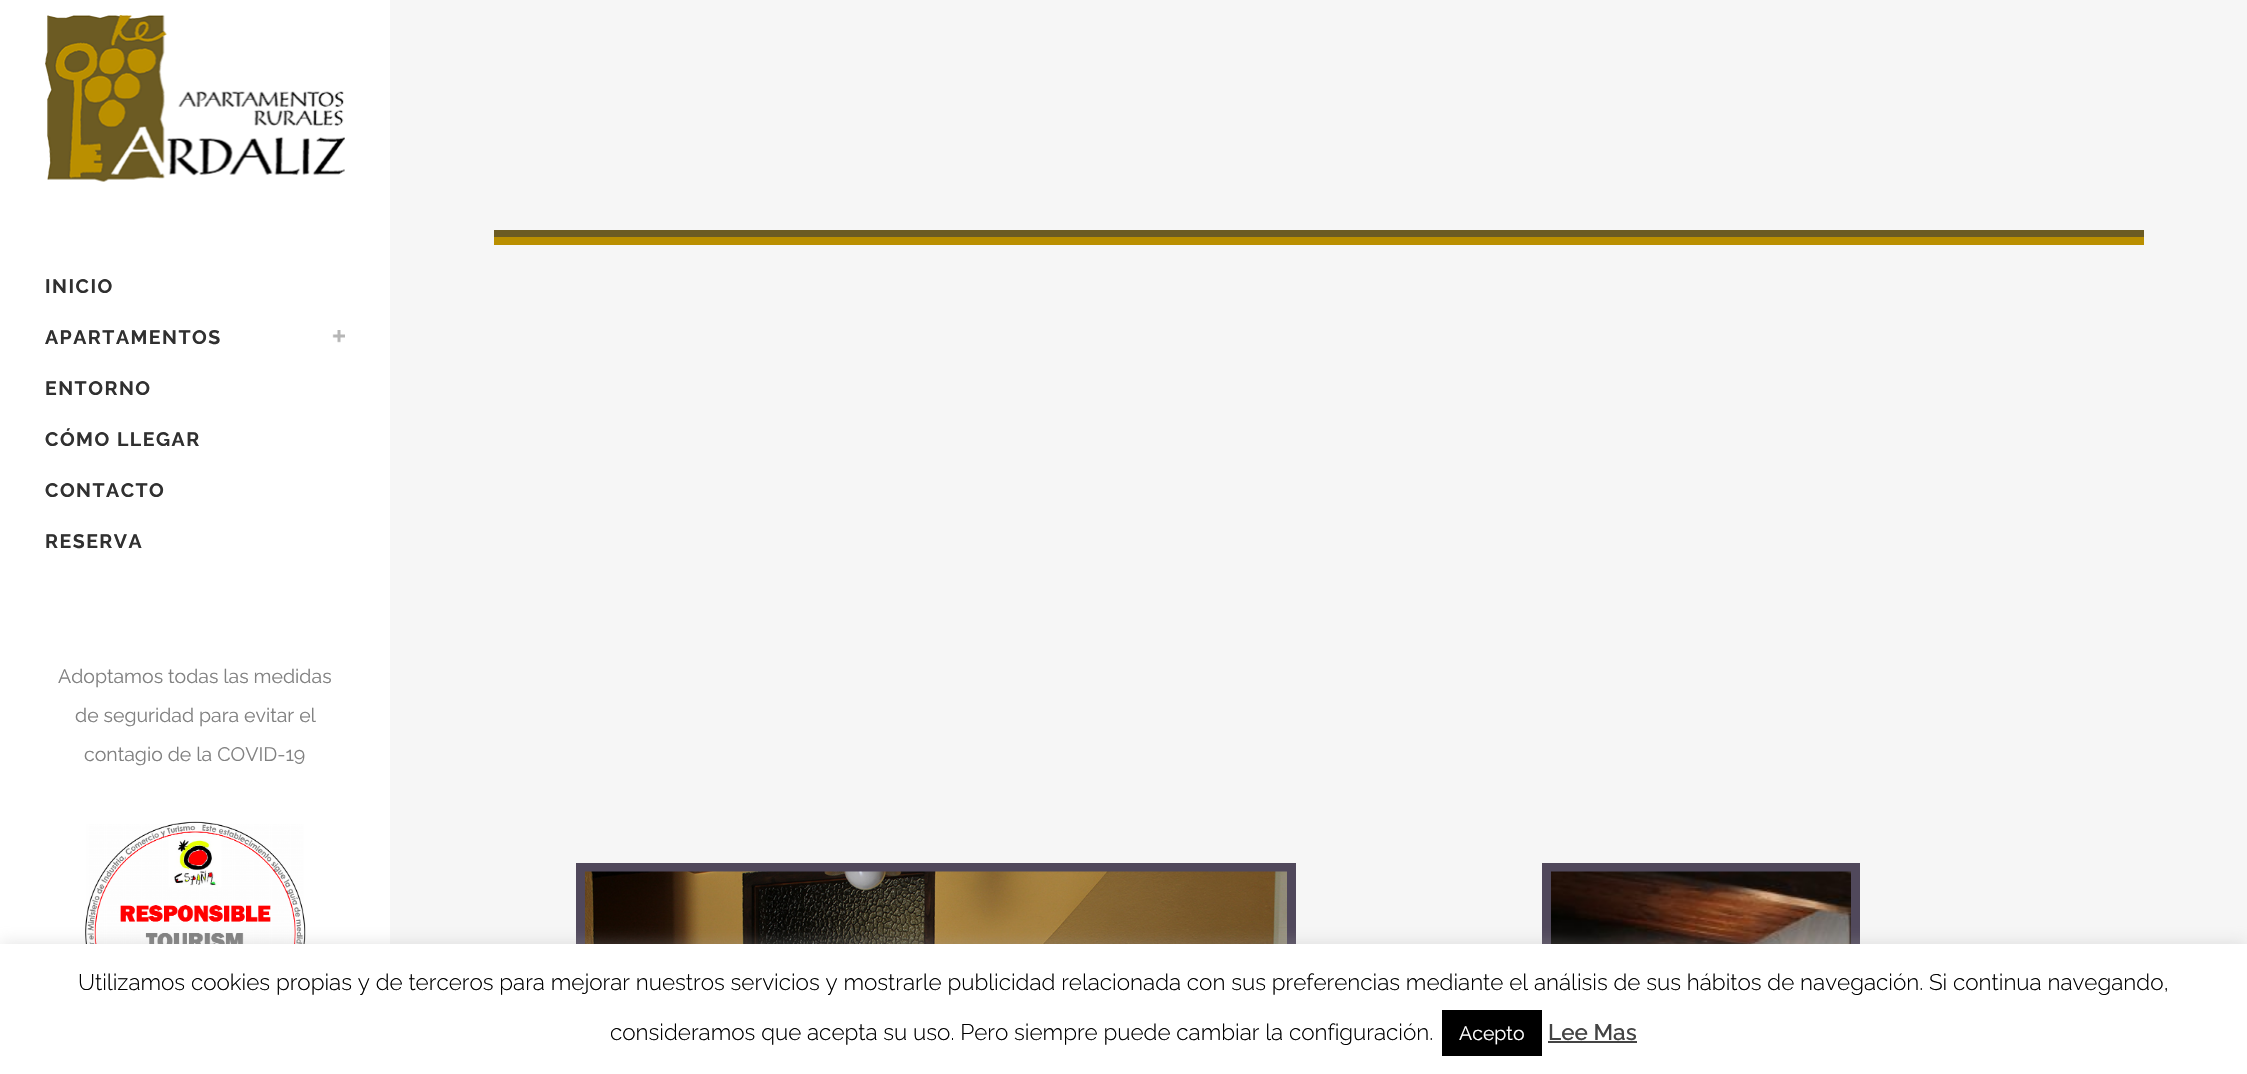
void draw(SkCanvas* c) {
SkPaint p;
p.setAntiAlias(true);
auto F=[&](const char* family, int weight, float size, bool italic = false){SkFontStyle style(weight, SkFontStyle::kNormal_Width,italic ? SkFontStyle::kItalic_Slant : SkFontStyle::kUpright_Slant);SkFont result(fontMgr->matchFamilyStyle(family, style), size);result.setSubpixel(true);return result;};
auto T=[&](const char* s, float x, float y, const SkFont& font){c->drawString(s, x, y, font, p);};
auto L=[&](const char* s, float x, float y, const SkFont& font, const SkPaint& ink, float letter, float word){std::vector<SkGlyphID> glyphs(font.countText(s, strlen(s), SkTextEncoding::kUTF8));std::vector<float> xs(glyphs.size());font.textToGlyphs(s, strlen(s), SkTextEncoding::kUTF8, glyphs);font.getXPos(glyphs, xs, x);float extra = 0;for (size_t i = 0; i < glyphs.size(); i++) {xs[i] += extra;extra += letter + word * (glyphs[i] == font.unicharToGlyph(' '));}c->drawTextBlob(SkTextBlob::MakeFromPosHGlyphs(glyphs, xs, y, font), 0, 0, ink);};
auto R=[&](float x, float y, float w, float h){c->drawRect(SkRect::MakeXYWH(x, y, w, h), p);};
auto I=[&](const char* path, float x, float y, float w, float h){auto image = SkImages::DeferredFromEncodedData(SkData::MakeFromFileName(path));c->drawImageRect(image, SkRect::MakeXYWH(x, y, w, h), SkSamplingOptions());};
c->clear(0xfff6f6f6);
p.setColor(0xffffffff);
R(0,0,390,944);
I("1.png",45,15,300,167);
auto f1 = F("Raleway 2",100,19.5);
p.setColor(0xff303030);
L("INICIO",45,293,f1,p,1.5,0);
L("APARTAMENTOS",45,344,f1,p,1.5,0);
I("2.png",332,330,13,13);
L("ENTORNO",45,395,f1,p,1.5,0);
L("CÓMO LLEGAR",45,446,f1,p,1.5,0);
L("CONTACTO",45,497,f1,p,1.5,0);
L("RESERVA",45,548,f1,p,1.5,0);
auto f2 = F("Raleway",100,19.5);
p.setColor(0xff818181);
T("Adoptamos todas las medidas",58,683,f2);
T("de seguridad para evitar el",75,722,f2);
T("contagio de la COVID-19",84,761,f2);
I("3.png",85,821,221,123);
p.setColor(0xff6c5b23);
R(494,230,1650,7);
p.setColor(0xffba8f00);
R(494,237,1650,8);
p.setColor(0xff50485b);
R(576,863,720,81);
I("4.png",585,871,702,73);
R(1542,863,318,81);
I("5.png",1551,871,300,73);
p.setColor(0x4dacabab);
p.setMaskFilter(SkMaskFilter::MakeBlur(kNormal_SkBlurStyle, 7.5));
c->drawRect(SkRect::MakeXYWH(0,942,2247,131),p);
p.setMaskFilter(nullptr);
p.setColor(0xffffffff);
R(0,944,2247,130);
auto f3 = F("Raleway",300,22.5);
p.setColor(0xff000000);
T("Utilizamos cookies propias y de terceros para mejorar nuestros servicios y mostrarle publicidad relacionada con sus preferencias mediante el análisis de sus hábitos de navegación. Si continua navegando,",78,990,f3);
T("consideramos que acepta su uso. Pero siempre puede cambiar la configuración.",610,1040,f3);
R(1442,1010,100,46);
p.setColor(0xffffffff);
T("Acepto",1459,1040,f2);
auto f4 = F("Raleway",500,22.5);
p.setColor(0xff444444);
T("Lee Mas",1548,1040,f4);
R(1548,1041,89,2);
}
